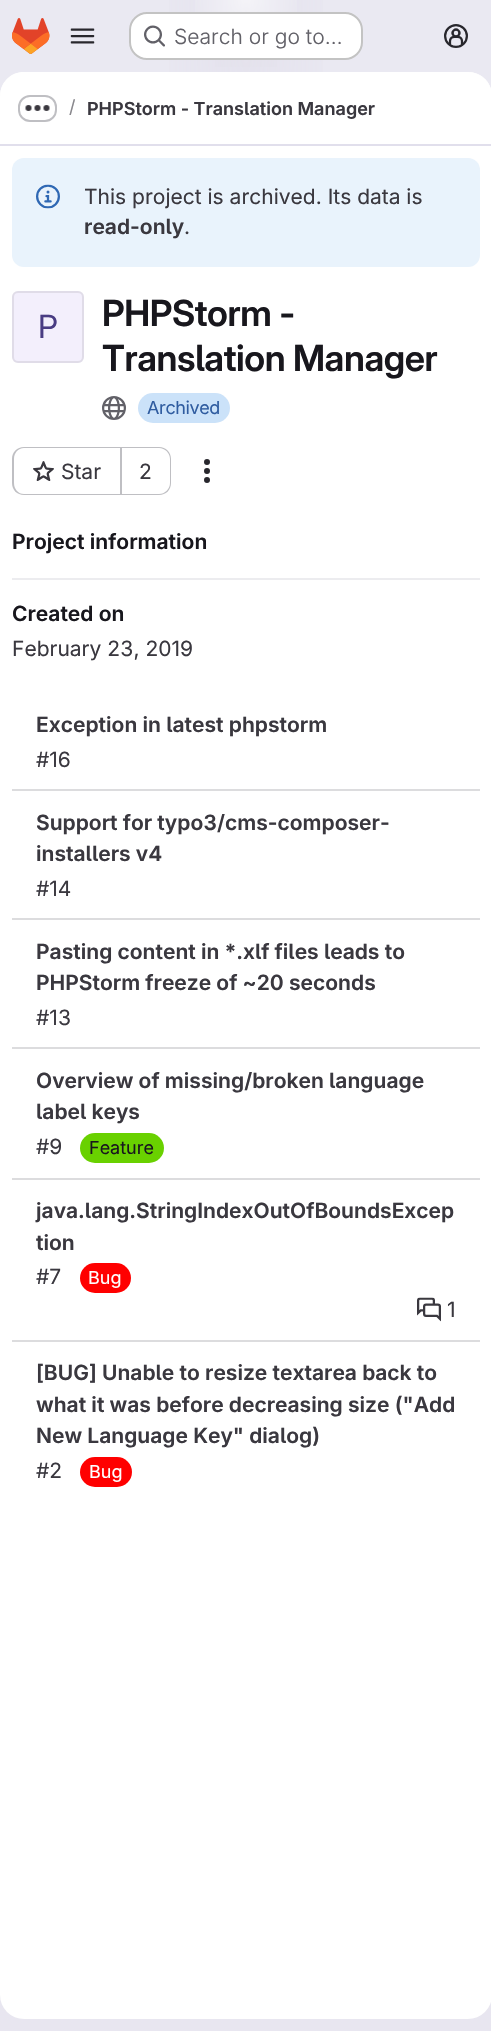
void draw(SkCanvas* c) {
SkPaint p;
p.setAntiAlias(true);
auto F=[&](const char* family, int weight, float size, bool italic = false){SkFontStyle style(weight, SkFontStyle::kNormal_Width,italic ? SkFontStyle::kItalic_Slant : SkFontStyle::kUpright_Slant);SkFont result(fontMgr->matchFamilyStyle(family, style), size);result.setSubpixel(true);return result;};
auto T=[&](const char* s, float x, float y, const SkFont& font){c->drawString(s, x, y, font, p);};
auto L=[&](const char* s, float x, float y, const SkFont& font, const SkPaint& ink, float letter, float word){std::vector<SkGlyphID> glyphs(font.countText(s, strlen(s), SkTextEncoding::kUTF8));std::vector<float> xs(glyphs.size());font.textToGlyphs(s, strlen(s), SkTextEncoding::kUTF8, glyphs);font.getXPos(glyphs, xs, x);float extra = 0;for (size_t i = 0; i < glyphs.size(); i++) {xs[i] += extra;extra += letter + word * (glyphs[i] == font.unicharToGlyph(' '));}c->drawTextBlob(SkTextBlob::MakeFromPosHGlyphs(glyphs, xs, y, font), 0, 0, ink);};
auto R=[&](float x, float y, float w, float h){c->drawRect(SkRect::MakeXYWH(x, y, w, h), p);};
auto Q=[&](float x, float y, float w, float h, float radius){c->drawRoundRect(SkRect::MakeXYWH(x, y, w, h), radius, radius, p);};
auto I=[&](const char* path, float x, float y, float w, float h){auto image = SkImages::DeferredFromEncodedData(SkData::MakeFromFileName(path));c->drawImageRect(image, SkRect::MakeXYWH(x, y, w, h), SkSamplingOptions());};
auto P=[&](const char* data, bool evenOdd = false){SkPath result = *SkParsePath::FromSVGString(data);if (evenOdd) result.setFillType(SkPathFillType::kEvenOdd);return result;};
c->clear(0xffffffff);
{
const SkColor colors[] = {0xffe8e6f0,0xffeae9f2};
const float stops[] = {0,.7};
const SkPoint ends[] = {{427,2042}, {65,-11}};
p.setShader(SkGradientShader::MakeLinear(ends, colors, stops, 2, SkTileMode::kClamp));
p.setAlpha(255);
}
R(0,0,491,2031);
{
const SkColor colors[] = {0xffe4e2ed,0x00e4e2ed};
const float stops[] = {0,.43};
SkMatrix m = SkMatrix::Translate(246,0).preScale(246,2031);
p.setShader(SkGradientShader::MakeRadial({0, 0}, 1, colors, stops, 2, SkTileMode::kClamp, 0, &m));
p.setAlpha(255);
}
R(169,0,154,72);
{
const SkColor colors[] = {0xffe4e2ec,0x00e4e2ec};
const float stops[] = {0,.3};
SkMatrix m = SkMatrix::Translate(246,0).preScale(246,2031);
p.setShader(SkGradientShader::MakeRadial({0, 0}, 1, colors, stops, 2, SkTileMode::kClamp, 0, &m));
p.setAlpha(255);
}
R(215,12,62,55);
{
const SkColor colors[] = {0x99ffffff,0x00ffffff};
const float stops[] = {0,.03};
p.setShader(SkGradientShader::MakeRadial({246,0}, 2046, colors, stops, 2, SkTileMode::kClamp));
p.setAlpha(255);
}
R(195,0,102,12);
I("1.png",12,18,38,36);
I("2.png",70,28,25,16);
p.setShader(nullptr);
p.setColor(0xffffffff);
Q(129,12,234,48,18);
p.setStroke(true);
p.setStrokeWidth(2);
p.setColor(0x3d050506);
c->drawRoundRect(SkRect::MakeXYWH(130,13,232,46),17,17,p);
I("3.png",144,25,21,22);
auto f1 = F("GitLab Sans",300,21);
p.setStroke(false);
p.setColor(0xff626168);
T("Search or go to…",174,44,f1);
I("4.png",444,24,24,24);
p.setColor(0xffffffff);
Q(0,72,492,1947,24);
c->drawPath(P("M24 72h444c13.5 0 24 10.5 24 24v50h-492v-50c0-13.5 10.5-24 24-24z"),p);
p.setColor(0xffe1dfec);
R(0,144,491,2);
p.setStroke(true);
p.setColor(0xffbfbfc3);
c->drawRoundRect(SkRect::MakeXYWH(19,96,37,25),11,11,p);
I("5.png",25,105,25,6);
auto f2 = F("GitLab Sans",400,18);
p.setStroke(false);
p.setColor(0xff89888d);
T("/",69,113,f2);
auto f3 = F("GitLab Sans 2",600,18);
p.setColor(0xff3a383f);
T("PHPStorm - Translation Manager",87,115,f3);
p.setColor(0xffe9f3fc);
Q(12,158,468,109,12);
I("6.png",36,184,24,25);
auto f4 = F("GitLab Sans",400,21);
p.setColor(0xff3a383f);
T("This project is archived. Its data is",84,204,f4);
auto f5 = F("GitLab Sans 2",600,21);
T("read-only",84,234,f5);
T(".",184,234,f4);
p.setColor(0xfff3effc);
Q(12,291,72,72,6);
p.setStroke(true);
p.setColor(0x14050506);
c->drawRoundRect(SkRect::MakeXYWH(13,292,70,70),5,5,p);
auto f6 = F("GitLab Sans 2",400,32);
p.setStroke(false);
p.setColor(0xff493c83);
T("P",38,338,f6);
auto f7 = F("GitLab Sans",600,36);
p.setColor(0xff18171d);
L("PHPStorm -",102,326,f7,p,-.4,0);
L("Translation Manager",102,371,f7,p,-.4,0);
I("7.png",102,396,24,24);
p.setColor(0xffcbe2f9);
Q(138,393,92,30,15);
p.setColor(0xff2f5ca0);
L("Archived",147,414,f2,p,-.4,0);
p.setColor(0xffbfbfc3);
c->drawPath(P("M24 447h96v48h-96c-7 0-12-5-12-12v-24c0-7 5-12 12-12zm0 1h96v46h-96c-6 0-10-5-10-11v-24c0-6 4-11 10-11z",true),p);
I("8.png",33,461,21,20);
p.setColor(0xff3a383f);
T("Star",61,479,f4);
p.setColor(0xffbfbfc3);
c->drawPath(P("M122 447h37c7 0 12 5 12 12v24c0 7-5 12-12 12h-37zm0 1h37c6 0 11 5 11 11v24c0 6-5 11-11 11h-37z",true),p);
R(120,447,2,48);
p.setColor(0xff3a383f);
T("2",139,479,f4);
I("9.png",204,459,6,24);
p.setColor(0xffececef);
R(12,578,468,2);
p.setColor(0xff18171d);
T("Project information",12,549,f5);
T("Created on",12,621,f5);
p.setColor(0xff3a383f);
T("February 23, 2019",12,656,f4);
p.setColor(0xffdcdcde);
R(12,789,468,2);
p.setColor(0xff3a383f);
T("Exception in latest phpstorm",36,732,f5);
T("#16",36,767,f4);
p.setColor(0xffdcdcde);
R(12,918,468,2);
p.setColor(0xff3a383f);
T("Support for typo3/cms-composer-",36,830,f5);
T("installers v4",36,861,f5);
T("#14",36,896,f4);
p.setColor(0xffdcdcde);
R(12,1047,468,2);
p.setColor(0xff3a383f);
T("Pasting content in *.xlf files leads to",36,959,f5);
T("PHPStorm freeze of ~20 seconds",36,990,f5);
T("#13",36,1025,f4);
p.setColor(0xffdcdcde);
R(12,1178,468,2);
p.setColor(0xff3a383f);
T("Overview of missing/broken language",36,1088,f5);
T("label keys",36,1119,f5);
T("#9",36,1154,f4);
p.setColor(0xff69d100);
Q(80,1133,84,30,15);
p.setColor(0xff18171d);
T("Feature",89,1154,f2);
p.setColor(0xffdcdcde);
R(12,1340,468,2);
p.setColor(0xff3a383f);
T("java.lang.StringIndexOutOfBoundsExcep",36,1218,f5);
T("tion",36,1250,f5);
T("#7",36,1284,f4);
p.setColor(0xffff0000);
Q(80,1263,51,30,15);
p.setColor(0xffffffff);
T("Bug",88,1284,f2);
I("10.png",417,1297,24,25);
p.setColor(0xff3a383f);
T("1",447,1317,f4);
T("[BUG] Unable to resize textarea back to",36,1380,f5);
T("what it was before decreasing size (\"Add",36,1412,f5);
T("New Language Key\" dialog)",36,1443,f5);
T("#2",36,1478,f4);
p.setColor(0xffff0000);
Q(80,1457,52,30,15);
p.setColor(0xffffffff);
T("Bug",89,1478,f2);
}
